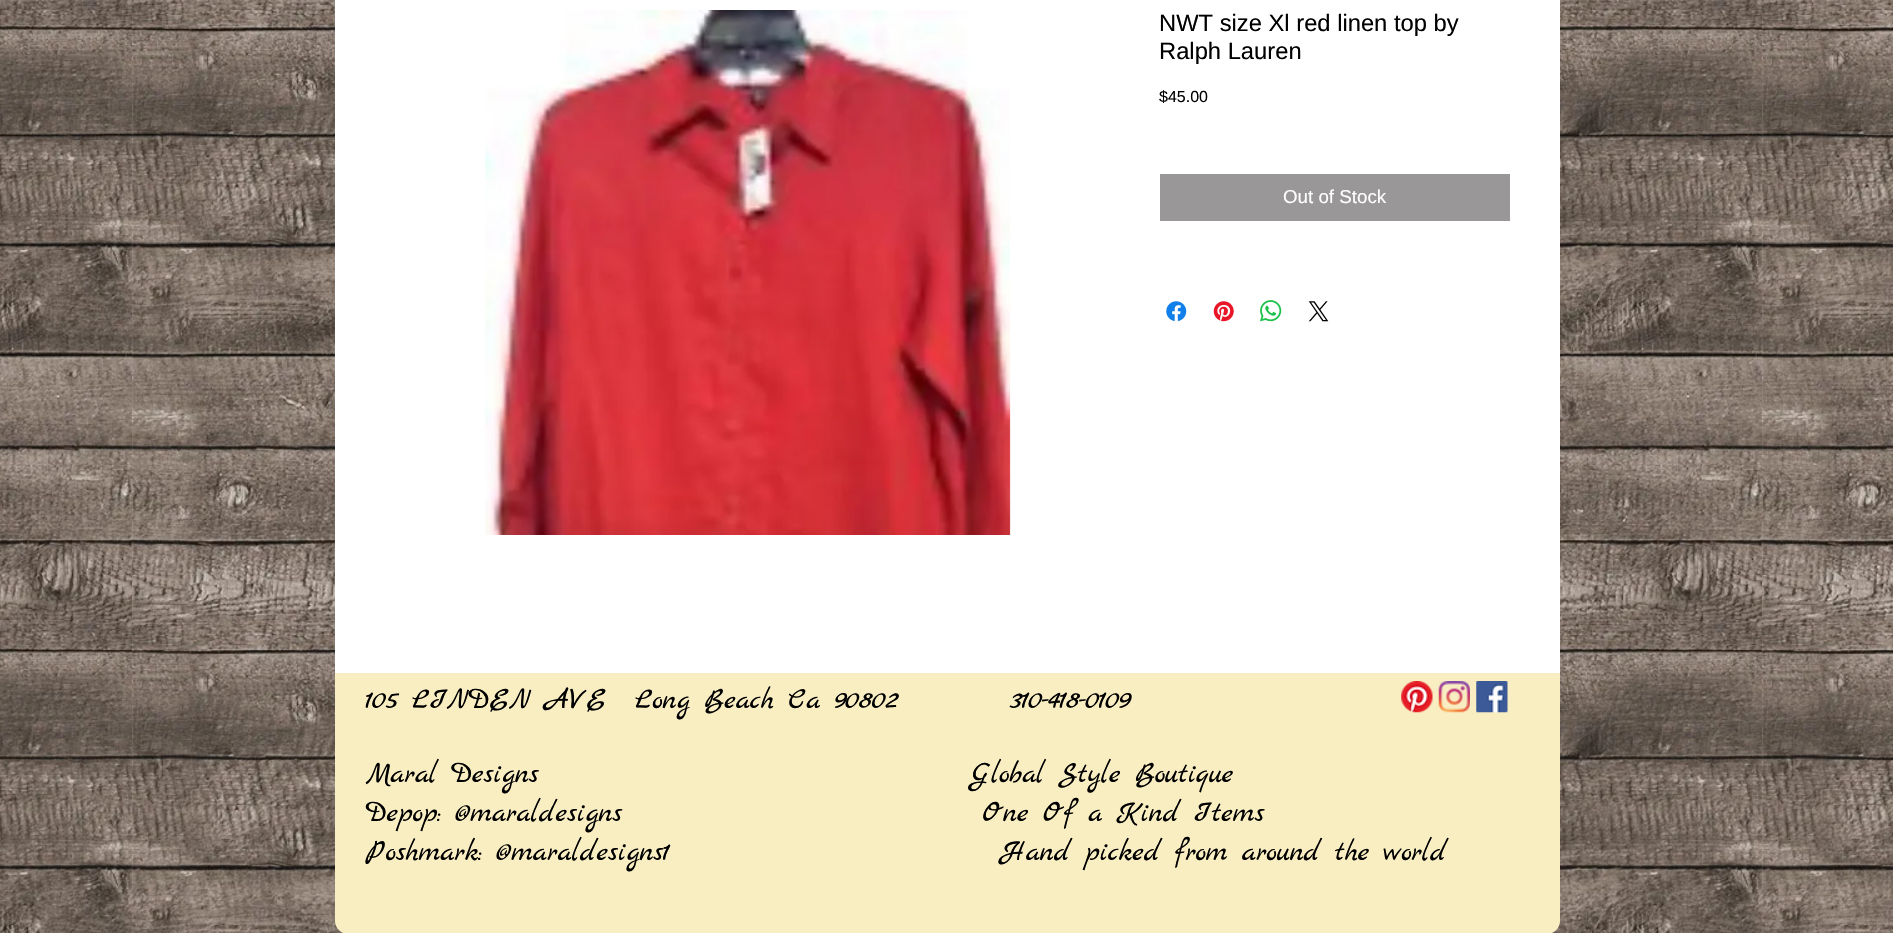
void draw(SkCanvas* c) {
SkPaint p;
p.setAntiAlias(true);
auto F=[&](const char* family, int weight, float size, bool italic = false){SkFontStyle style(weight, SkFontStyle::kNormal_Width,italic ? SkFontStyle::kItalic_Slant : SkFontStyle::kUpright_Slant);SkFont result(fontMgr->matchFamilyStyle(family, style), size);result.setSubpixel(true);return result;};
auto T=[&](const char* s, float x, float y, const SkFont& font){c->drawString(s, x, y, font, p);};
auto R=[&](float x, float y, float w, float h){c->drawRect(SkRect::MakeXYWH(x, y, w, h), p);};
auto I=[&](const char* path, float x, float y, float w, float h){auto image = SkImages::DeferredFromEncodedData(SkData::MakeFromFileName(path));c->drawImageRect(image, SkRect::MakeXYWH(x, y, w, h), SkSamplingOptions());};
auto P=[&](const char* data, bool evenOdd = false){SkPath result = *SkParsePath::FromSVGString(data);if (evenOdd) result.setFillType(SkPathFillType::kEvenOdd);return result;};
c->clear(0xffffffff);
I("1.png",0,0,1893,933);
p.setColor(0xffffffff);
R(335,0,1225,673);
I("2.png",485,10,526,525);
auto f1 = F("Liberation Sans",400,23.75);
p.setColor(0xff000000);
T("NWT size Xl red linen top by",1159,31,f1);
T("Ralph Lauren",1159,59,f1);
auto f2 = F("Liberation Sans",400,16);
T("$45.00",1159,102,f2);
p.setColor(0xff999797);
R(1160,174,350,47);
auto f3 = F("Liberation Sans",400,18.75);
p.setColor(0xffffffff);
T("Out of Stock",1283,203,f3);
I("3.png",1166,301,21,21);
I("4.png",1213,301,21,21);
I("5.png",1260,300,22,22);
I("6.png",1308,301,21,21);
p.setColor(0xfff9eec2);
c->drawPath(P("M335 673h1225v248c0 7-6 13-13 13h-1199c-7 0-13-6-13-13z"),p);
auto f4 = F("Marck Script",400,30);
p.setColor(0xff000000);
T("105 LINDEN AVE  Long Beach Ca 90802",366,708,f4);
T("310-418-0109",1010,708,f4);
T("Maral Designs                              Global Style Boutique",366,782,f4);
T("Depop: @maraldesigns                         One Of a Kind Items",366,821,f4);
T("Poshmark: @maraldesigns1                       Hand picked from around the world",366,860,f4);
I("7.png",1401,681,32,32);
I("8.png",1438,681,32,32);
I("9.png",1476,681,32,32);
}
